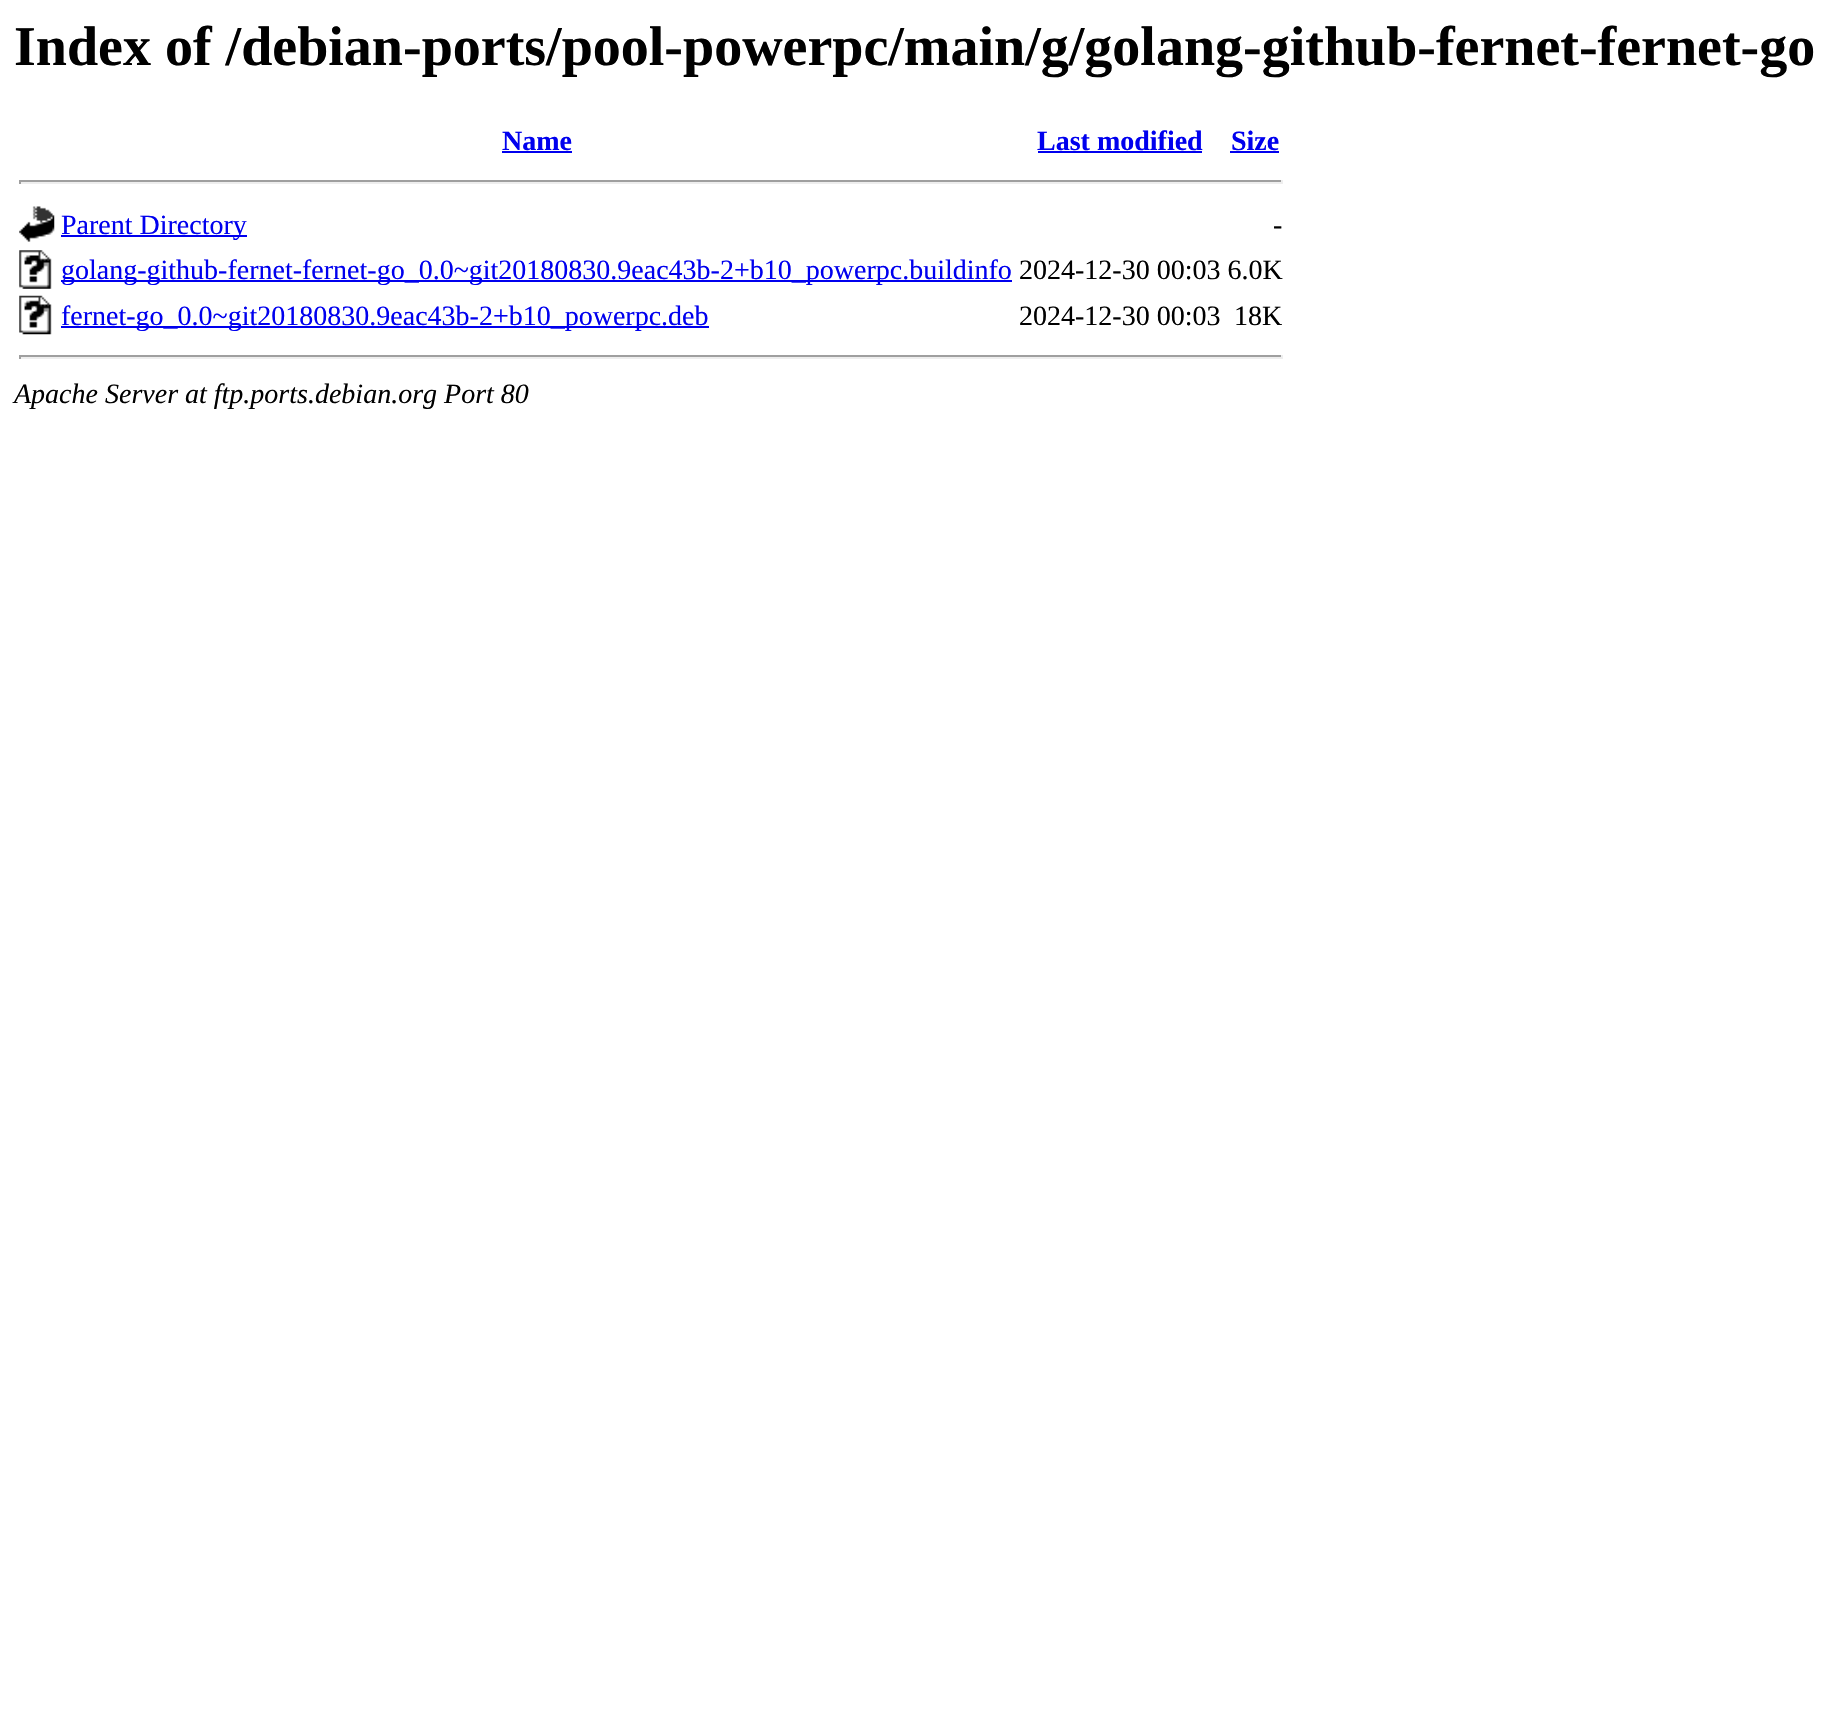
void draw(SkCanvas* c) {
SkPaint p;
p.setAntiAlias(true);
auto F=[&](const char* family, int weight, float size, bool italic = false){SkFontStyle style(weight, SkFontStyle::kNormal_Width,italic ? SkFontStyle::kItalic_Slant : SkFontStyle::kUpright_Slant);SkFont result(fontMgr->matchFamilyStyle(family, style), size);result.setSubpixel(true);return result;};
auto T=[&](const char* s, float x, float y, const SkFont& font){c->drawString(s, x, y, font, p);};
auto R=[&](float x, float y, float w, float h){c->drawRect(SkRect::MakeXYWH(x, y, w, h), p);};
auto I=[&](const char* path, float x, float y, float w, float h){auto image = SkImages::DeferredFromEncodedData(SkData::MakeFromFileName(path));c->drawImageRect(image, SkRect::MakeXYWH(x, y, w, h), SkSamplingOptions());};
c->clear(0xffffffff);
auto f1 = F("Liberation Serif",700,56);
p.setColor(0xff000000);
T("Index of /debian-ports/pool-powerpc/main/g/golang-github-fernet-fernet-go",14,65,f1);
auto f2 = F("Liberation Serif",700,28);
p.setColor(0xff0000ee);
T("Name",502,150,f2);
R(502,151,70,2);
T("Last modified",1037,150,f2);
R(1038,151,164,2);
T("Size",1231,150,f2);
R(1230,151,49,2);
p.setColor(0xff9f9f9f);
R(19,180,1264,2);
p.setColor(0xffeeeeee);
R(1281,180,2,4);
R(19,182,1264,2);
p.setColor(0xff9f9f9f);
R(19,180,2,4);
I("1.png",19,206,36,36);
p.setColor(0xff0000ee);
R(61,235,186,2);
auto f3 = F("Liberation Serif",400,28);
T("Parent Directory",61,234,f3);
p.setColor(0xff000000);
T("-",1273,234,f3);
I("2.png",19,250,33,39);
p.setColor(0xff0000ee);
R(61,280,951,2);
T("golang-github-fernet-fernet-go_0.0~git20180830.9eac43b-2+b10_powerpc.buildinfo",61,279,f3);
p.setColor(0xff000000);
T("2024-12-30 00:03 6.0K",1019,279,f3);
I("3.png",19,295,33,40);
p.setColor(0xff0000ee);
R(61,326,648,2);
T("fernet-go_0.0~git20180830.9eac43b-2+b10_powerpc.deb",61,325,f3);
p.setColor(0xff000000);
T("2024-12-30 00:03",1019,325,f3);
T("18K",1234,325,f3);
p.setColor(0xff9f9f9f);
R(19,355,1264,2);
p.setColor(0xffeeeeee);
R(1281,355,2,4);
R(19,357,1264,2);
p.setColor(0xff9f9f9f);
R(19,355,2,4);
auto f4 = F("Liberation Serif",400,28,true);
p.setColor(0xff000000);
T("Apache Server at ftp.ports.debian.org Port 80",14,403,f4);
}
